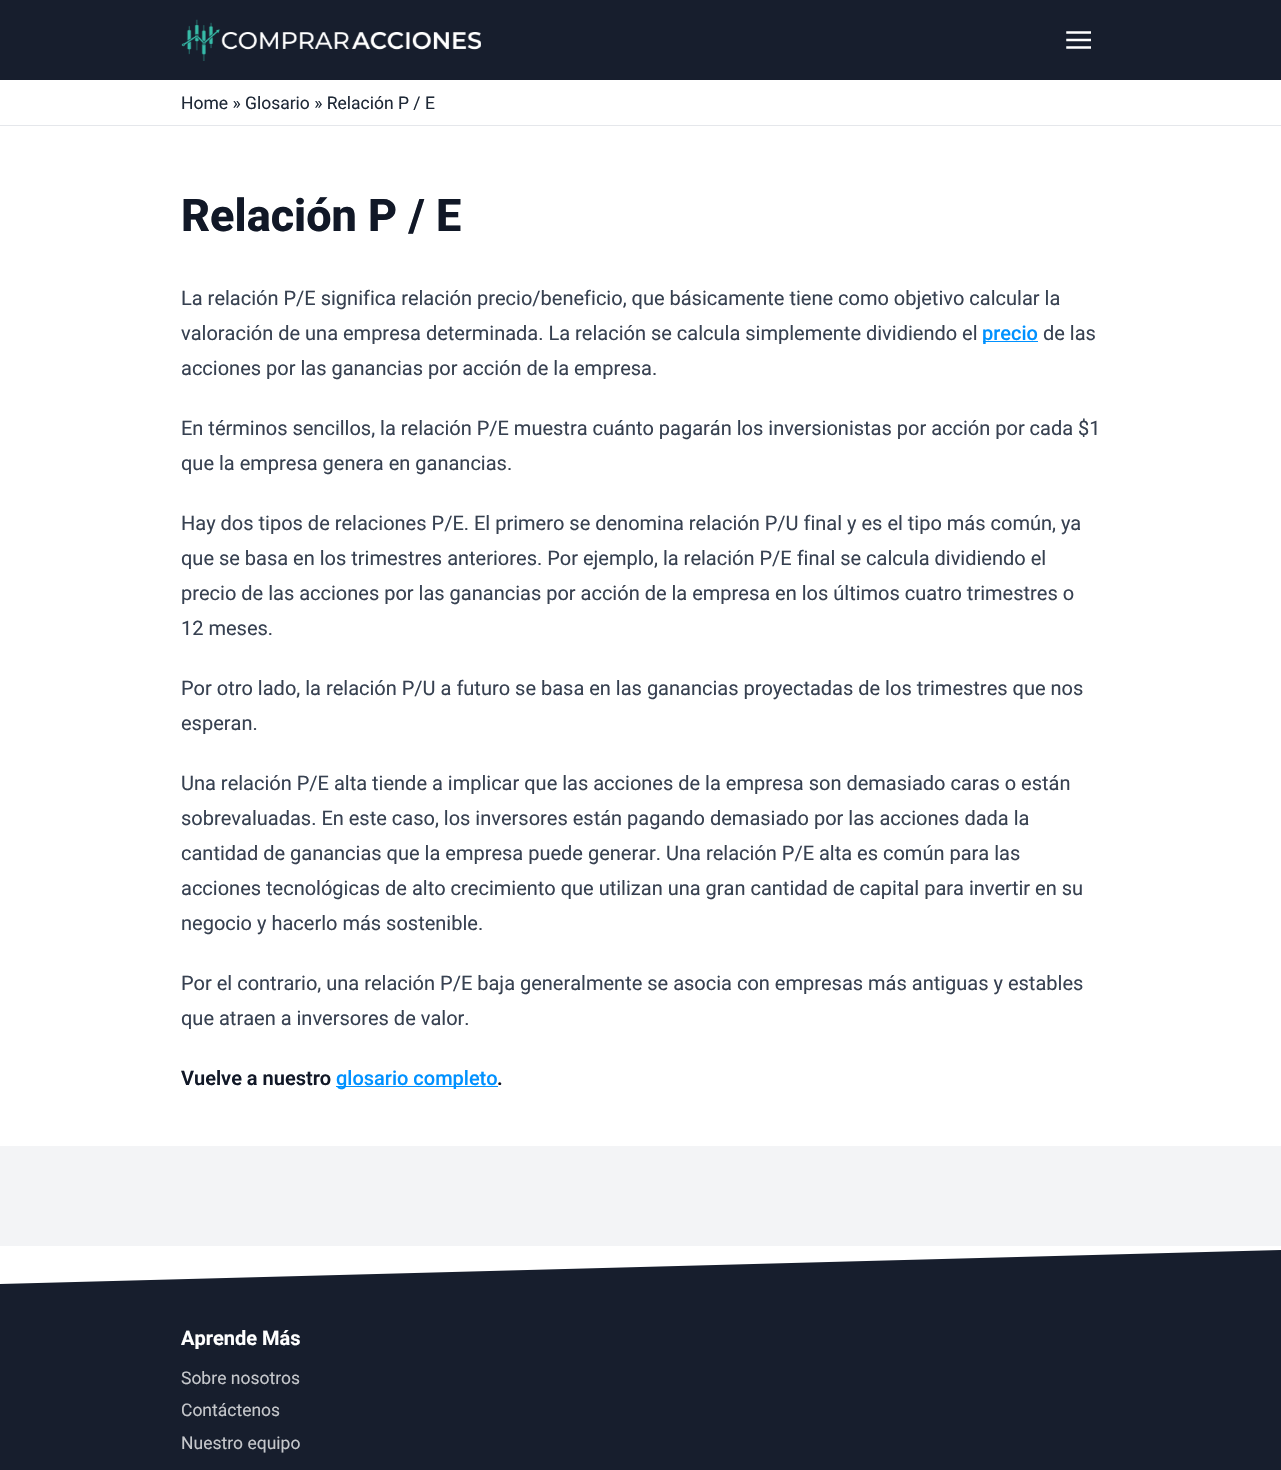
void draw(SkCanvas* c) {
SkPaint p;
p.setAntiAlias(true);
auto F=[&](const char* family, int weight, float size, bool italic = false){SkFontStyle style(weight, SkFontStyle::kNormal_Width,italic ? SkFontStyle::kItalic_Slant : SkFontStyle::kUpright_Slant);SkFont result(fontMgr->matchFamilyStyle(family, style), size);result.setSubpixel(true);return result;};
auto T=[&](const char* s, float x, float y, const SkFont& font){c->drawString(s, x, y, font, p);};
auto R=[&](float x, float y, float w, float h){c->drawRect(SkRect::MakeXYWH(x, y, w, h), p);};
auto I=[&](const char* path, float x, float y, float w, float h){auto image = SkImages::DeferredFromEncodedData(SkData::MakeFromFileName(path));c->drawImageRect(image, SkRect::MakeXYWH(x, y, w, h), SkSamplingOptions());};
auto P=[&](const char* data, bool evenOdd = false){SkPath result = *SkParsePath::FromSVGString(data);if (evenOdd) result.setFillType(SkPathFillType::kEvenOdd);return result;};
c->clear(0xffffffff);
p.setColor(0xff171e2d);
R(0,0,1281,80);
I("1.png",181,19,300,42);
I("2.png",1066,31,25,18);
p.setColor(0xffe5e7eb);
R(0,125,1281,1);
auto f1 = F("Roboto",400,17.5);
p.setColor(0xff1f2937);
T("Home » Glosario » Relación P / E",181,109,f1);
auto f2 = F("Roboto",800,45);
p.setColor(0xff111827);
T("Relación P / E",181,231,f2);
auto f3 = F("Roboto",400,20);
p.setColor(0xff374151);
T("La relación P/E significa relación precio/beneficio, que básicamente tiene como objetivo calcular la",181,305,f3);
T("valoración de una empresa determinada. La relación se calcula simplemente dividiendo el",181,340,f3);
p.setColor(0xff0091ff);
R(983,341,55,1);
auto f4 = F("Roboto",500,20);
T("precio",982,340,f4);
p.setColor(0xff374151);
T("de las",1043,340,f3);
T("acciones por las ganancias por acción de la empresa.",181,375,f3);
T("En términos sencillos, la relación P/E muestra cuánto pagarán los inversionistas por acción por cada $1",181,435,f3);
T("que la empresa genera en ganancias.",181,470,f3);
T("Hay dos tipos de relaciones P/E. El primero se denomina relación P/U final y es el tipo más común, ya",181,530,f3);
T("que se basa en los trimestres anteriores. Por ejemplo, la relación P/E final se calcula dividiendo el",181,565,f3);
T("precio de las acciones por las ganancias por acción de la empresa en los últimos cuatro trimestres o",181,600,f3);
T("12 meses.",181,635,f3);
T("Por otro lado, la relación P/U a futuro se basa en las ganancias proyectadas de los trimestres que nos",181,695,f3);
T("esperan.",181,730,f3);
T("Una relación P/E alta tiende a implicar que las acciones de la empresa son demasiado caras o están",181,790,f3);
T("sobrevaluadas. En este caso, los inversores están pagando demasiado por las acciones dada la",181,825,f3);
T("cantidad de ganancias que la empresa puede generar. Una relación P/E alta es común para las",181,860,f3);
T("acciones tecnológicas de alto crecimiento que utilizan una gran cantidad de capital para invertir en su",181,895,f3);
T("negocio y hacerlo más sostenible.",181,930,f3);
T("Por el contrario, una relación P/E baja generalmente se asocia con empresas más antiguas y estables",181,990,f3);
T("que atraen a inversores de valor.",181,1025,f3);
auto f5 = F("Roboto",600,20);
p.setColor(0xff111827);
T("Vuelve a nuestro",181,1085,f5);
p.setColor(0xff0091ff);
R(336,1086,162,1);
T("glosario completo",336,1085,f4);
p.setColor(0xff111827);
T(".",497,1085,f5);
p.setColor(0xfff3f4f6);
R(0,1146,1281,100);
p.setColor(0xff171e2d);
c->drawPath(P("M0 1284l1281-34v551l-1281 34z"),p);
auto f6 = F("Roboto",700,20);
p.setColor(0xffffffff);
T("Aprende Más",181,1345,f6);
p.setColor(0xffc5c7cb);
T("Sobre nosotros",181,1384,f1);
T("Contáctenos",181,1416,f1);
T("Nuestro equipo",181,1449,f1);
}
